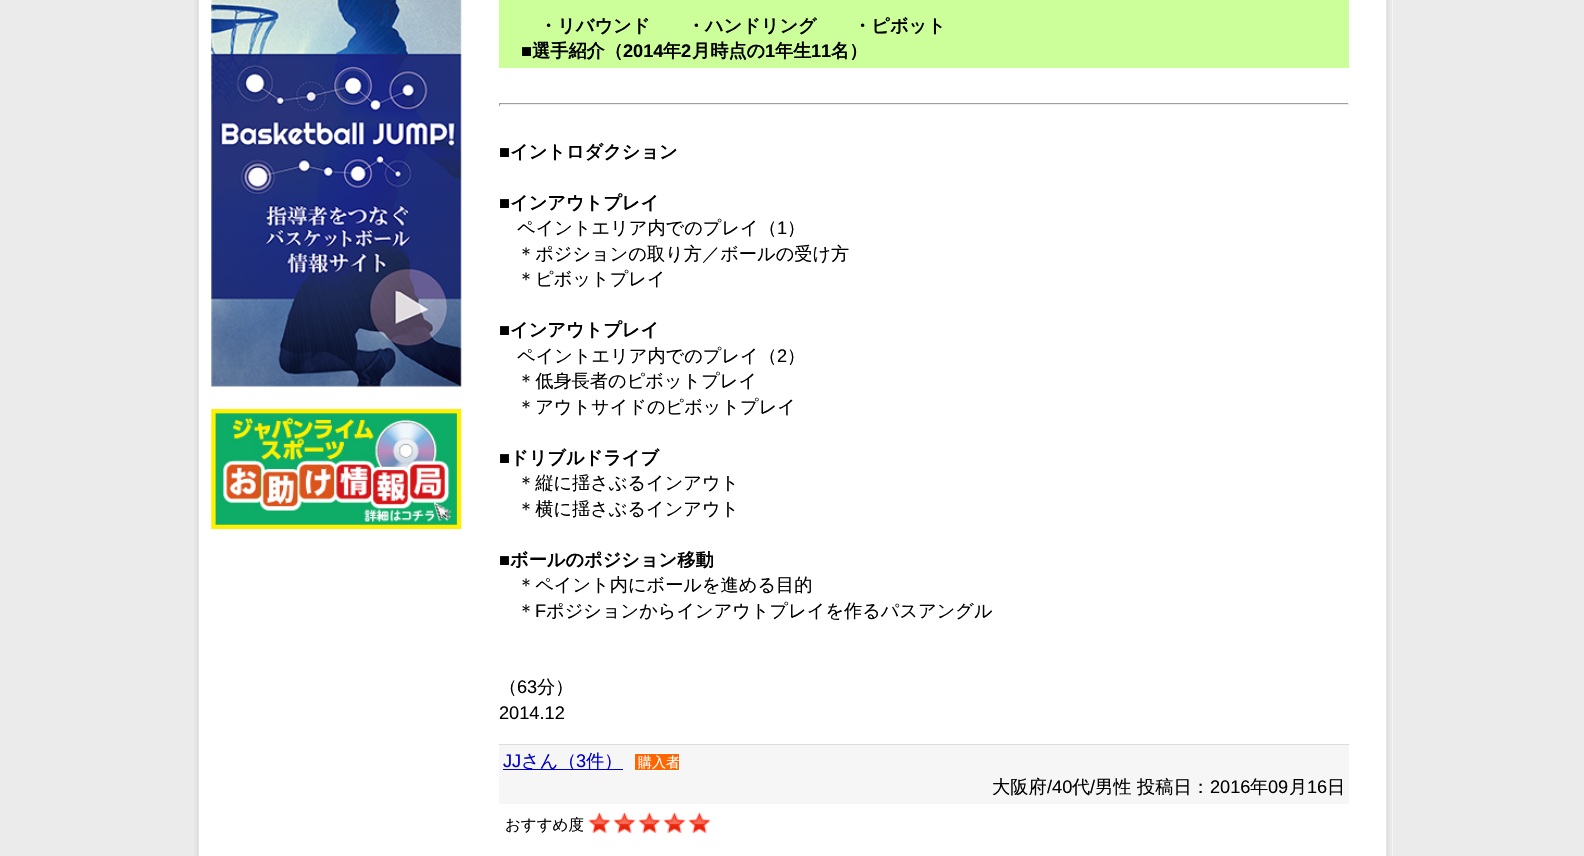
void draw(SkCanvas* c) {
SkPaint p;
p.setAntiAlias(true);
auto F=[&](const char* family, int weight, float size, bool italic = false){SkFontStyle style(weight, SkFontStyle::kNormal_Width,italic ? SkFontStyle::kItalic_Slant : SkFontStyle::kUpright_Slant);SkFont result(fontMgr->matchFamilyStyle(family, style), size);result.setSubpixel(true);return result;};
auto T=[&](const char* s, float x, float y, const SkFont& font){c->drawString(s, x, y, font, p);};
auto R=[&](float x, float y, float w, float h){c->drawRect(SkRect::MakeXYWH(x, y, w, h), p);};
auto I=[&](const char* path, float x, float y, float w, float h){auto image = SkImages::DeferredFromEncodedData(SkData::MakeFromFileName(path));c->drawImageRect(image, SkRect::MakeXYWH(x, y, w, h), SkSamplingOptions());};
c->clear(0xffebebeb);
p.setColor(0xffffffff);
R(1392,0,1,856);
I("1.png",193,0,1200,856);
I("2.png",211,0,251,387);
I("3.png",211,409,251,120);
p.setColor(0xffccff99);
R(499,0,850,68);
auto f1 = F("WenQuanYi Zen Hei",700,18.2);
p.setColor(0xff000000);
T("・リバウンド　　・ハンドリング　　・ピボット",539,32,f1);
auto f2 = F("Liberation Sans",700,18.2);
T("■",521,57,f2);
T("選手紹介（",532,57,f1);
T("2014",623,57,f2);
T("年",663,57,f1);
T("2",681,57,f2);
T("月時点の",692,57,f1);
T("1",765,57,f2);
T("年生",775,57,f1);
T("11",811,57,f2);
T("名）",831,57,f1);
p.setColor(0xff9f9f9f);
R(499,103,850,1);
p.setColor(0xffeeeeee);
R(1348,103,1,3);
R(499,104,850,1);
p.setColor(0xff9f9f9f);
R(499,103,1,3);
p.setColor(0xff000000);
T("■",499,158,f2);
T("イントロダクション",510,158,f1);
T("■",499,209,f2);
T("インアウトプレイ",510,209,f1);
auto f3 = F("WenQuanYi Zen Hei",500,18.2);
T("ペイントエリア内でのプレイ（",517,234,f3);
auto f4 = F("Liberation Sans",400,18.2);
T("1",777,234,f4);
T("）",787,234,f3);
T("＊ポジションの取り方／ボールの受け方",517,260,f3);
T("＊ピボットプレイ",517,285,f3);
T("■",499,336,f2);
T("インアウトプレイ",510,336,f1);
T("ペイントエリア内でのプレイ（",517,362,f3);
T("2",777,362,f4);
T("）",787,362,f3);
T("＊低身長者のピボットプレイ",517,387,f3);
T("＊アウトサイドのピボットプレイ",517,413,f3);
T("■",499,464,f2);
T("ドリブルドライブ",510,464,f1);
T("＊縦に揺さぶるインアウト",517,489,f3);
T("＊横に揺さぶるインアウト",517,515,f3);
T("■",499,566,f2);
T("ボールのポジション移動",510,566,f1);
T("＊ペイント内にボールを進める目的",517,591,f3);
T("＊",517,617,f3);
T("F",535,617,f4);
T("ポジションからインアウトプレイを作るパスアングル",546,617,f3);
T("（",499,693,f3);
T("63",517,693,f4);
T("分）",537,693,f3);
T("2014.12",499,719,f4);
p.setColor(0xffdddddd);
R(499,744,850,1);
p.setColor(0xfff6f6f6);
R(499,745,850,59);
p.setColor(0xff0000cd);
T("JJ",503,767,f4);
R(503,769,120,1);
T("さん（",521,767,f3);
T("3",576,767,f4);
T("件）",586,767,f3);
p.setColor(0xffff6600);
c->drawRect(SkRect::MakeXYWH(634.5,753.5,45,17),p);
p.setStroke(true);
p.setStrokeWidth(1);
p.setColor(0xffffffff);
c->drawRect(SkRect::MakeXYWH(634.5,753.5,45,17),p);
auto f5 = F("WenQuanYi Zen Hei",500,14);
p.setStroke(false);
T("購入者",638,767,f5);
p.setColor(0xff000000);
T("大阪府",992,793,f3);
T("/40",1047,793,f4);
T("代",1072,793,f3);
T("/",1090,793,f4);
T("男性",1095,793,f3);
T("投稿日：",1137,793,f3);
T("2016",1210,793,f4);
T("年",1250,793,f3);
T("09",1268,793,f4);
T("月",1289,793,f3);
T("16",1307,793,f4);
T("日",1327,793,f3);
auto f6 = F("WenQuanYi Zen Hei",500,15.5);
T("おすすめ度",505,830,f6);
I("4.png",588,812,123,21);
}
